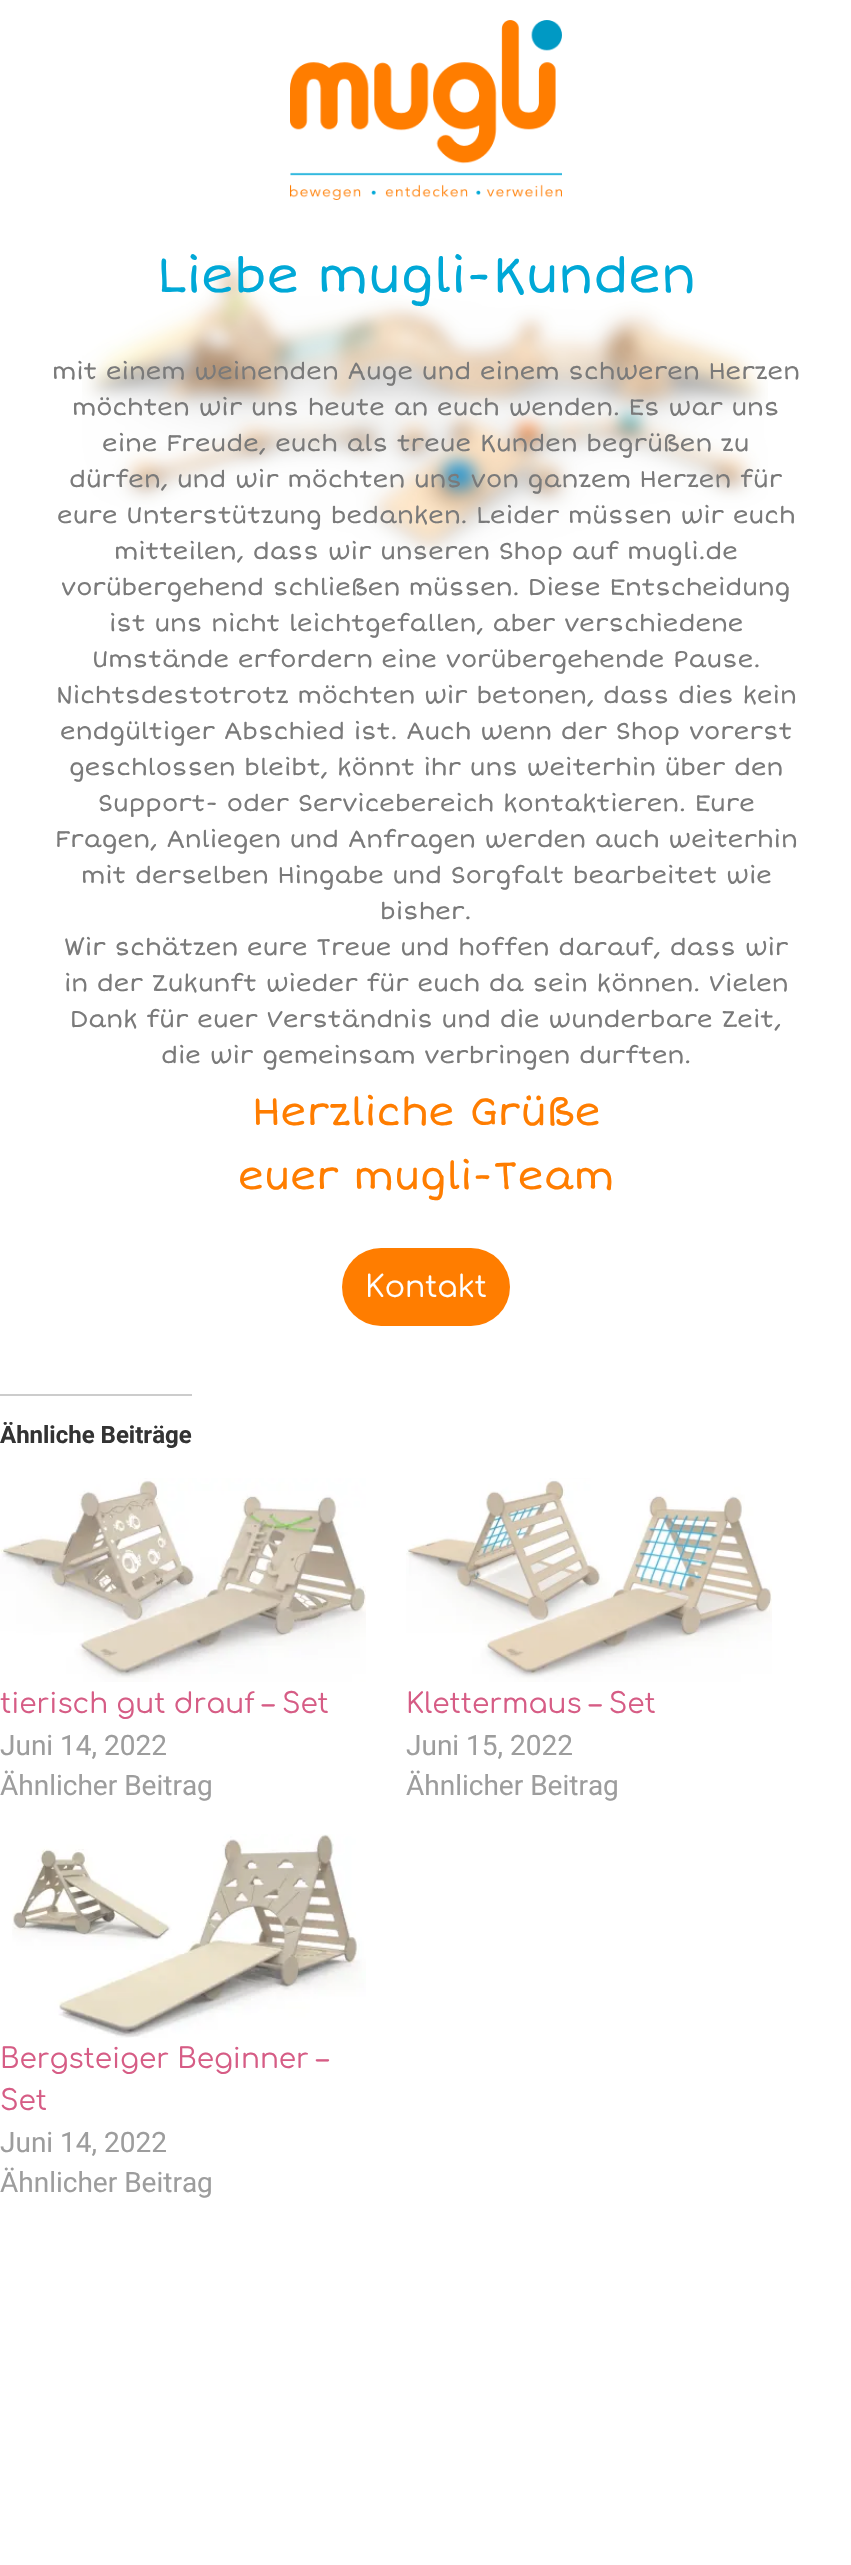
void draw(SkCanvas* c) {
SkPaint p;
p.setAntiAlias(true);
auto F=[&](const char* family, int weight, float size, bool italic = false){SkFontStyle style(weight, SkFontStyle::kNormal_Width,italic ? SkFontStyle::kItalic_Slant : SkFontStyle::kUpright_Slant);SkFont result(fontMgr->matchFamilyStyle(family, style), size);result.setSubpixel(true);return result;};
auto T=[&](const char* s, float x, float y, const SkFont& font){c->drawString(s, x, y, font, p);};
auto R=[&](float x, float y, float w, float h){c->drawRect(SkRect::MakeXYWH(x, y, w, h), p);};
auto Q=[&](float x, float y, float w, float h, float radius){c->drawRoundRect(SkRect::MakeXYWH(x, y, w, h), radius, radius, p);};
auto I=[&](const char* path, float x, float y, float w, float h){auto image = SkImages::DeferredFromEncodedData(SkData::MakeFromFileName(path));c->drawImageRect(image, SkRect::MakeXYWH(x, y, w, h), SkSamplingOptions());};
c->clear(0xffffffff);
I("1.png",290,20,272,180);
I("2.png",82,261,686,297);
auto f1 = F("Short Stack",400,50);
p.setColor(0xff00a8d7);
T("Liebe mugli-Kunden",157,292,f1);
auto f2 = F("Short Stack",400,24);
p.setColor(0xff7a7a7a);
T("mit einem weinenden Auge und einem schweren Herzen",52,379,f2);
T("möchten wir uns heute an euch wenden. Es war uns",72,415,f2);
T("eine Freude, euch als treue Kunden begrüßen zu",102,451,f2);
T("dürfen, und wir möchten uns von ganzem Herzen für",69,487,f2);
T("eure Unterstützung bedanken. Leider müssen wir euch",57,523,f2);
T("mitteilen, dass wir unseren Shop auf mugli.de",114,559,f2);
T("vorübergehend schließen müssen. Diese Entscheidung",61,595,f2);
T("ist uns nicht leichtgefallen, aber verschiedene",109,631,f2);
T("Umstände erfordern eine vorübergehende Pause.",92,667,f2);
T("Nichtsdestotrotz möchten wir betonen, dass dies kein",56,703,f2);
T("endgültiger Abschied ist. Auch wenn der Shop vorerst",60,739,f2);
T("geschlossen bleibt, könnt ihr uns weiterhin über den",69,775,f2);
T("Support- oder Servicebereich kontaktieren. Eure",98,811,f2);
T("Fragen, Anliegen und Anfragen werden auch weiterhin",55,847,f2);
T("mit derselben Hingabe und Sorgfalt bearbeitet wie",81,883,f2);
T("bisher.",380,919,f2);
T("Wir schätzen eure Treue und hoffen darauf, dass wir",64,955,f2);
T("in der Zukunft wieder für euch da sein können. Vielen",64,991,f2);
T("Dank für euer Verständnis und die wunderbare Zeit,",70,1027,f2);
T("die wir gemeinsam verbringen durften.",161,1063,f2);
auto f3 = F("Short Stack",400,40);
p.setColor(0xffff7d00);
T("Herzliche Grüße",252,1125,f3);
T("euer mugli-Team",238,1189,f3);
Q(342,1248,168,78,39);
auto f4 = F("Comfortaa",400,30);
p.setColor(0xffffffff);
T("Kontakt",365,1297,f4);
p.setColor(0xffcccccc);
R(0,1394,192,2);
auto f5 = F("Roboto",700,24);
p.setColor(0xff333333);
T("Ähnliche Beiträge",0,1443,f5);
I("3.png",0,1478,366,204);
auto f6 = F("Comfortaa",400,28);
p.setColor(0xffd65c85);
T("tierisch gut drauf – Set",0,1713,f6);
auto f7 = F("Roboto",400,28);
p.setColor(0xff9d9d9d);
T("Juni 14, 2022",0,1755,f7);
T("Ähnlicher Beitrag",0,1795,f7);
I("4.png",406,1478,366,204);
p.setColor(0xffd65c85);
T("Klettermaus – Set",406,1713,f6);
p.setColor(0xff9d9d9d);
T("Juni 15, 2022",406,1755,f7);
T("Ähnlicher Beitrag",406,1795,f7);
I("5.png",12,1834,354,204);
p.setColor(0xffd65c85);
T("Bergsteiger Beginner –",0,2068,f6);
T("Set",0,2110,f6);
p.setColor(0xff9d9d9d);
T("Juni 14, 2022",0,2152,f7);
T("Ähnlicher Beitrag",0,2192,f7);
}
